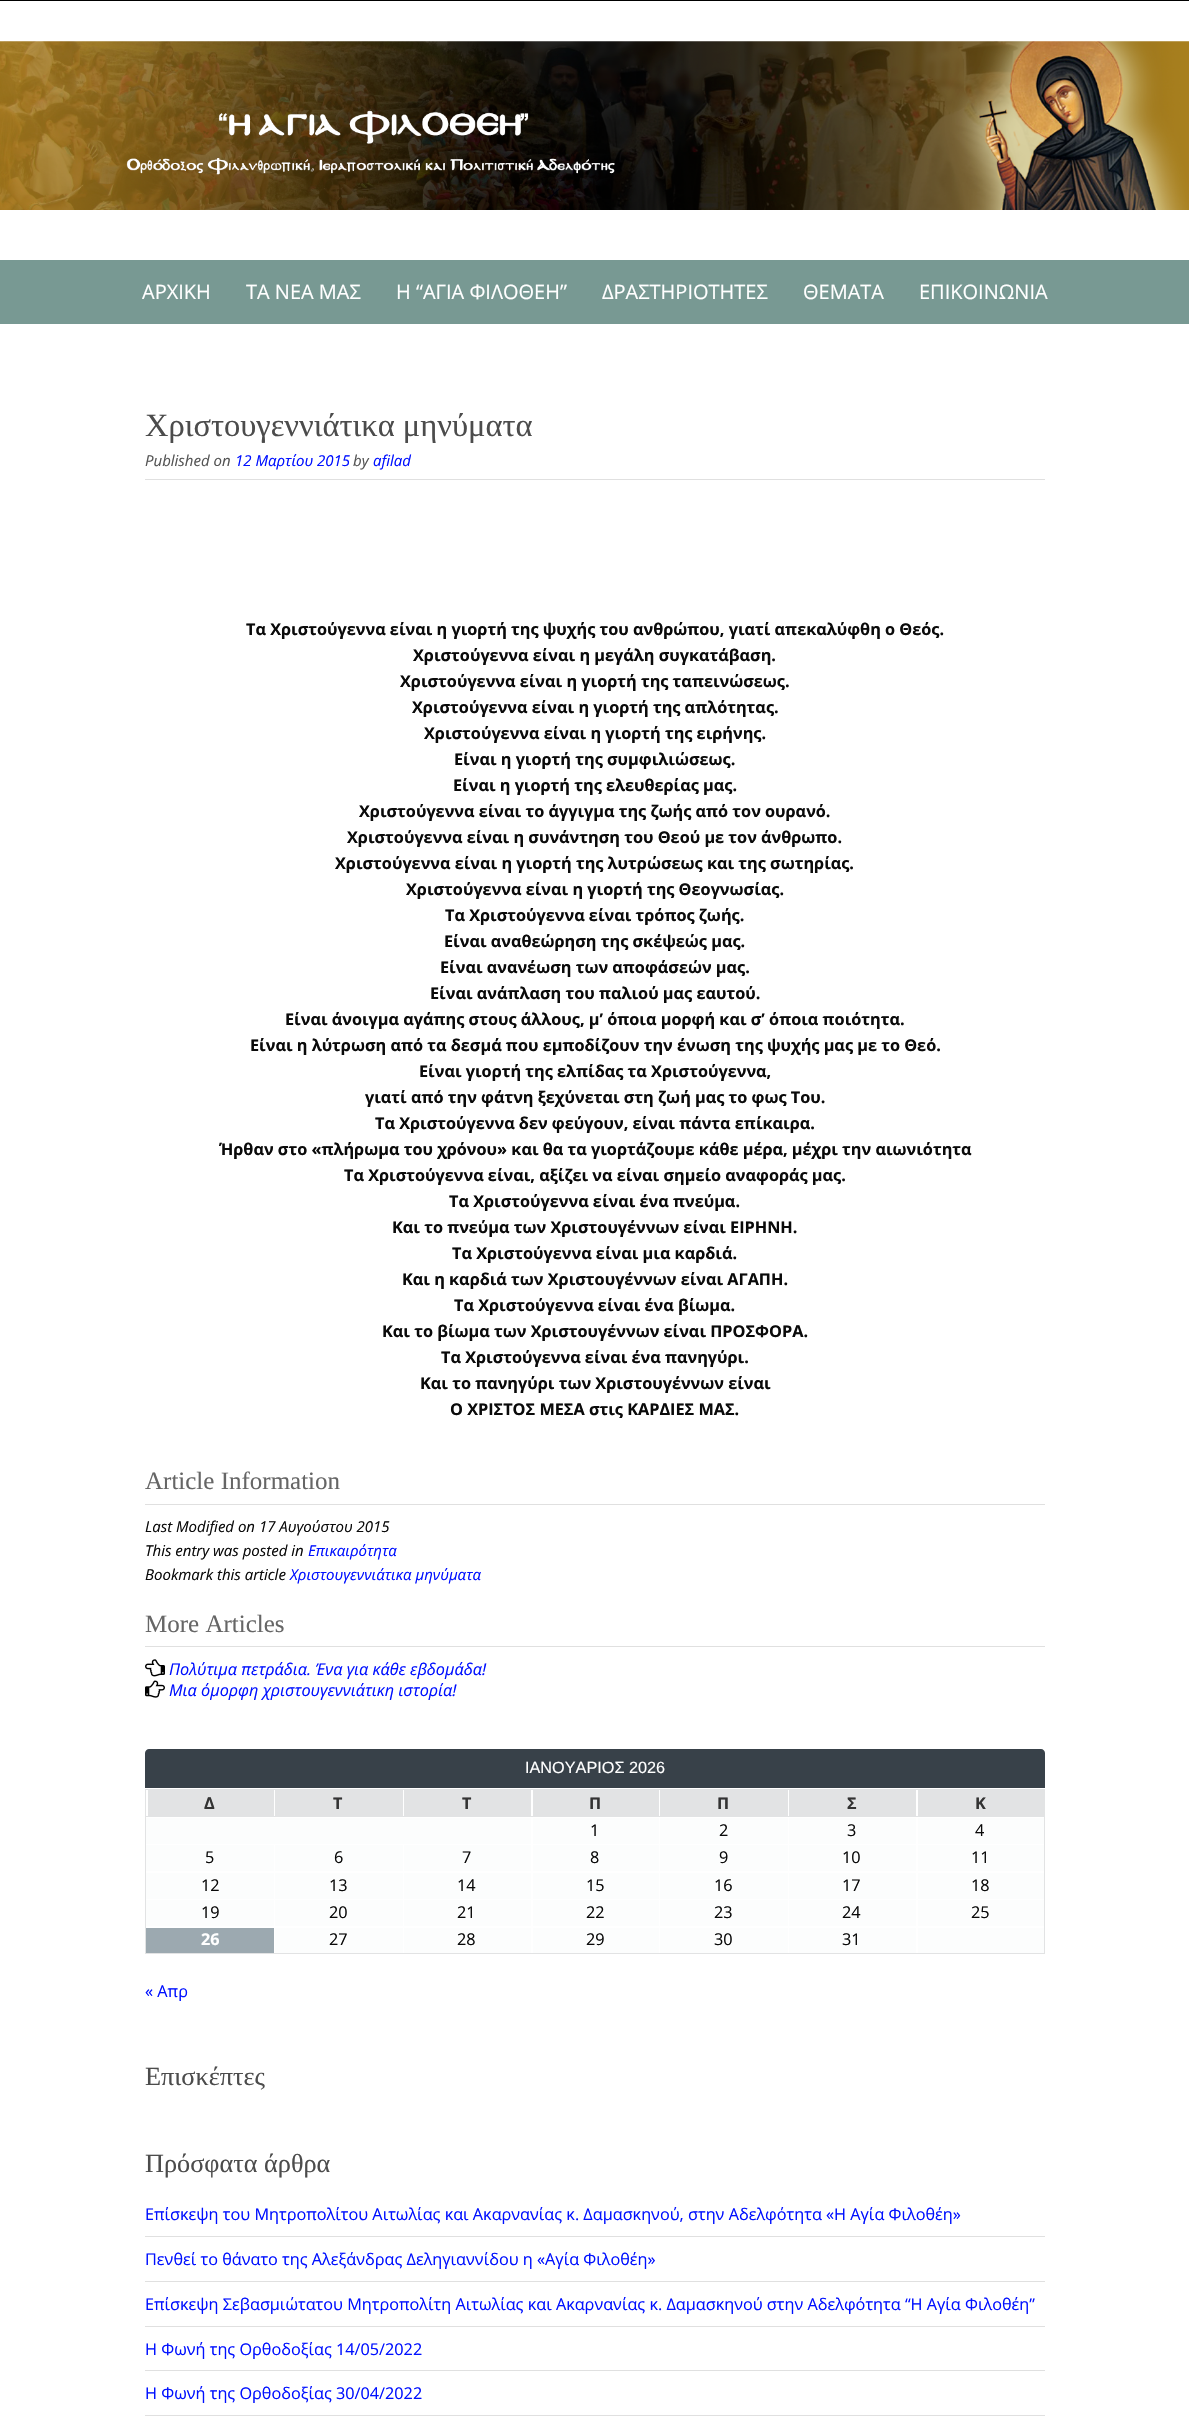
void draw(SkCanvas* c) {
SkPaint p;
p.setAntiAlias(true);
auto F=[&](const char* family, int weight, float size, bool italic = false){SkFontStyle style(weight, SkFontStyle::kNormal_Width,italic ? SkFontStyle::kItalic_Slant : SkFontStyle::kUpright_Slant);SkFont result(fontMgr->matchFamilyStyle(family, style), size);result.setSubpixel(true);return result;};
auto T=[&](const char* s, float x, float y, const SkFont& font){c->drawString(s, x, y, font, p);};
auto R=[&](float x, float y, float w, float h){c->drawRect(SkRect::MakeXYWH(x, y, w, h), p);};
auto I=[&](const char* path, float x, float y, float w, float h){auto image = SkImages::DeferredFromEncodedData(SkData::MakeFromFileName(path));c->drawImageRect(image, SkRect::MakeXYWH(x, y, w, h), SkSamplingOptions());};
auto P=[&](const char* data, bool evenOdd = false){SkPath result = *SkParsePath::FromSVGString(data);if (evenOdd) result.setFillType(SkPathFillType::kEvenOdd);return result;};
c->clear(0xff000000);
p.setColor(0xffffffff);
R(0,1,1189,259);
I("1.png",0,41,1189,169);
p.setColor(0xff789993);
R(0,260,1189,64);
auto f1 = F("Open Sans",400,20);
p.setColor(0xffffffff);
T("ΑΡΧΙΚΗ",142,299,f1);
T("ΤΑ ΝΕΑ ΜΑΣ",246,299,f1);
T("Η “ΑΓΙΑ ΦΙΛΟΘΕΗ”",396,299,f1);
T("ΔΡΑΣΤΗΡΙΟΤΗΤΕΣ",602,299,f1);
T("ΘΕΜΑΤΑ",803,299,f1);
T("ΕΠΙΚΟΙΝΩΝΙΑ",919,299,f1);
R(0,324,1189,2098);
p.setColor(0xffe0e0e0);
R(145,479,900,1);
auto f2 = F("Liberation Serif",400,32.5);
p.setColor(0xff4c4c4c);
T("Χριστουγεννιάτικα μηνύματα",145,436,f2);
auto f3 = F("Open Sans",400,15,true);
p.setColor(0xff545454);
T("Published on",145,466,f3);
p.setColor(0xff0010ff);
T("12 Μαρτίου 2015",235,466,f3);
p.setColor(0xff545454);
T("by",353,466,f3);
p.setColor(0xff0010ff);
T("afilad",373,466,f3);
auto f4 = F("Open Sans",700,16.25);
p.setColor(0xff0a0a0a);
T("Τα Χριστούγεννα είναι η γιορτή της ψυχής του ανθρώπου, γιατί απεκαλύφθη ο Θεός.",246,635,f4);
T("Χριστούγεννα είναι η μεγάλη συγκατάβαση.",413,661,f4);
T("Χριστούγεννα είναι η γιορτή της ταπεινώσεως.",400,687,f4);
T("Χριστούγεννα είναι η γιορτή της απλότητας.",412,713,f4);
T("Χριστούγεννα είναι η γιορτή της ειρήνης.",424,739,f4);
T("Είναι η γιορτή της συμφιλιώσεως.",454,765,f4);
T("Είναι η γιορτή της ελευθερίας μας.",453,791,f4);
T("Χριστούγεννα είναι το άγγιγμα της ζωής από τον ουρανό.",359,817,f4);
T("Χριστούγεννα είναι η συνάντηση του Θεού με τον άνθρωπο.",347,843,f4);
T("Χριστούγεννα είναι η γιορτή της λυτρώσεως και της σωτηρίας.",335,869,f4);
T("Χριστούγεννα είναι η γιορτή της Θεογνωσίας.",406,895,f4);
T("Τα Χριστούγεννα είναι τρόπος ζωής.",445,921,f4);
T("Είναι αναθεώρηση της σκέψεώς μας.",444,947,f4);
T("Είναι ανανέωση των αποφάσεών μας.",440,973,f4);
T("Είναι ανάπλαση του παλιού μας εαυτού.",430,999,f4);
T("Είναι άνοιγμα αγάπης στους άλλους, μ’ όποια μορφή και σ’ όποια ποιότητα.",285,1025,f4);
T("Είναι η λύτρωση από τα δεσμά που εμποδίζουν την ένωση της ψυχής μας με το Θεό.",250,1051,f4);
T("Είναι γιορτή της ελπίδας τα Χριστούγεννα,",419,1077,f4);
T("γιατί από την φάτνη ξεχύνεται στη ζωή μας το φως Του.",365,1103,f4);
T("Τα Χριστούγεννα δεν φεύγουν, είναι πάντα επίκαιρα.",375,1129,f4);
T("Ήρθαν στο «πλήρωμα του χρόνου» και θα τα γιορτάζουμε κάθε μέρα, μέχρι την αιωνιότητα",219,1155,f4);
T("Τα Χριστούγεννα είναι, αξίζει να είναι σημείο αναφοράς μας.",344,1181,f4);
T("Τα Χριστούγεννα είναι ένα πνεύμα.",449,1207,f4);
T("Και το πνεύμα των Χριστουγέννων είναι ΕΙΡΗΝΗ.",392,1233,f4);
T("Τα Χριστούγεννα είναι μια καρδιά.",452,1259,f4);
T("Και η καρδιά των Χριστουγέννων είναι ΑΓΑΠΗ.",402,1285,f4);
T("Τα Χριστούγεννα είναι ένα βίωμα.",454,1311,f4);
T("Και το βίωμα των Χριστουγέννων είναι ΠΡΟΣΦΟΡΑ.",382,1337,f4);
T("Τα Χριστούγεννα είναι ένα πανηγύρι.",441,1363,f4);
T("Και το πανηγύρι των Χριστουγέννων είναι",420,1389,f4);
T("Ο ΧΡΙΣΤΟΣ ΜΕΣΑ στις ΚΑΡΔΙΕΣ ΜΑΣ.",450,1415,f4);
p.setColor(0xffe0e0e0);
R(145,1504,900,1);
auto f5 = F("Liberation Serif",400,25);
p.setColor(0xff666666);
T("Article Information",145,1489,f5);
p.setColor(0xff0a0a0a);
T("Last Modified on 17 Αυγούστου 2015",145,1532,f3);
T("This entry was posted in",145,1556,f3);
p.setColor(0xff0010ff);
T("Επικαιρότητα",308,1556,f3);
p.setColor(0xff0a0a0a);
T("Bookmark this article",145,1580,f3);
p.setColor(0xff0010ff);
T("Χριστουγεννιάτικα μηνύματα",290,1580,f3);
p.setColor(0xffe0e0e0);
R(145,1646,900,1);
p.setColor(0xff666666);
T("More Articles",145,1632,f5);
I("2.png",145,1659,20,18);
auto f6 = F("Open Sans",400,16.25,true);
p.setColor(0xff0010ff);
T("Πολύτιμα πετράδια. Ένα για κάθε εβδομάδα!",169,1675,f6);
I("3.png",145,1680,20,18);
T("Μια όμορφη χριστουγεννιάτικη ιστορία!",169,1696,f6);
p.setColor(0xff384149);
c->drawPath(P("M149 1749h892c2 0 4 2 4 4v35h-900v-35c0-2 2-4 4-4z"),p);
auto f7 = F("Liberation Sans",400,16.25);
p.setColor(0xffffffff);
T("ΙΑΝΟΥΑΡΙΟΣ 2026",525,1773,f7);
p.setColor(0xffe2e3e4);
R(145,1789,900,1);
R(145,1816,900,1);
R(1044,1816,1,138);
R(145,1953,900,1);
R(145,1816,1,138);
R(145,1789,1,29);
R(148,1790,126,26);
p.setColor(0xff333333);
T("Δ",204,1809,f4);
p.setColor(0xffe2e3e4);
R(275,1790,128,26);
p.setColor(0xff333333);
T("Τ",333,1809,f4);
p.setColor(0xffe2e3e4);
R(404,1790,127,26);
p.setColor(0xff333333);
T("Τ",462,1809,f4);
p.setColor(0xffe2e3e4);
R(533,1790,126,26);
p.setColor(0xff333333);
T("Π",589,1809,f4);
p.setColor(0xffe2e3e4);
R(660,1790,128,26);
p.setColor(0xff333333);
T("Π",717,1809,f4);
p.setColor(0xffe2e3e4);
R(789,1790,127,26);
p.setColor(0xff333333);
T("Σ",847,1809,f4);
p.setColor(0xffe2e3e4);
R(918,1790,127,26);
p.setColor(0xff333333);
T("Κ",975,1809,f4);
p.setColor(0xfffcfdfd);
R(146,1818,385,26);
R(533,1818,126,26);
auto f8 = F("Open Sans",400,16.25);
p.setColor(0xff0a0a0a);
T("1",590,1836,f8);
p.setColor(0xfffcfdfd);
R(660,1818,128,26);
p.setColor(0xff0a0a0a);
T("2",719,1836,f8);
p.setColor(0xfffcfdfd);
R(789,1818,127,26);
p.setColor(0xff0a0a0a);
T("3",847,1836,f8);
p.setColor(0xfffcfdfd);
R(918,1818,126,26);
p.setColor(0xff0a0a0a);
T("4",975,1836,f8);
p.setColor(0xfffcfdfd);
R(146,1845,128,26);
p.setColor(0xff0a0a0a);
T("5",205,1863,f8);
p.setColor(0xfffcfdfd);
R(275,1845,128,26);
p.setColor(0xff0a0a0a);
T("6",334,1863,f8);
p.setColor(0xfffcfdfd);
R(404,1845,127,26);
p.setColor(0xff0a0a0a);
T("7",462,1863,f8);
p.setColor(0xfffcfdfd);
R(533,1845,126,26);
p.setColor(0xff0a0a0a);
T("8",590,1863,f8);
p.setColor(0xfffcfdfd);
R(660,1845,128,26);
p.setColor(0xff0a0a0a);
T("9",719,1863,f8);
p.setColor(0xfffcfdfd);
R(789,1845,127,26);
p.setColor(0xff0a0a0a);
T("10",842,1863,f8);
p.setColor(0xfffcfdfd);
R(918,1845,126,26);
p.setColor(0xff0a0a0a);
T("11",971,1863,f8);
p.setColor(0xfffcfdfd);
R(146,1873,128,26);
p.setColor(0xff0a0a0a);
T("12",201,1891,f8);
p.setColor(0xfffcfdfd);
R(275,1873,128,26);
p.setColor(0xff0a0a0a);
T("13",329,1891,f8);
p.setColor(0xfffcfdfd);
R(404,1873,127,26);
p.setColor(0xff0a0a0a);
T("14",457,1891,f8);
p.setColor(0xfffcfdfd);
R(533,1873,126,26);
p.setColor(0xff0a0a0a);
T("15",586,1891,f8);
p.setColor(0xfffcfdfd);
R(660,1873,128,26);
p.setColor(0xff0a0a0a);
T("16",714,1891,f8);
p.setColor(0xfffcfdfd);
R(789,1873,127,26);
p.setColor(0xff0a0a0a);
T("17",842,1891,f8);
p.setColor(0xfffcfdfd);
R(918,1873,126,26);
p.setColor(0xff0a0a0a);
T("18",971,1891,f8);
p.setColor(0xfffcfdfd);
R(146,1900,128,26);
p.setColor(0xff0a0a0a);
T("19",201,1918,f8);
p.setColor(0xfffcfdfd);
R(275,1900,128,26);
p.setColor(0xff0a0a0a);
T("20",329,1918,f8);
p.setColor(0xfffcfdfd);
R(404,1900,127,26);
p.setColor(0xff0a0a0a);
T("21",457,1918,f8);
p.setColor(0xfffcfdfd);
R(533,1900,126,26);
p.setColor(0xff0a0a0a);
T("22",586,1918,f8);
p.setColor(0xfffcfdfd);
R(660,1900,128,26);
p.setColor(0xff0a0a0a);
T("23",714,1918,f8);
p.setColor(0xfffcfdfd);
R(789,1900,127,26);
p.setColor(0xff0a0a0a);
T("24",842,1918,f8);
p.setColor(0xfffcfdfd);
R(918,1900,126,26);
p.setColor(0xff0a0a0a);
T("25",971,1918,f8);
p.setColor(0xff9ca9b0);
R(146,1928,128,25);
p.setColor(0xffffffff);
T("26",201,1945,f4);
p.setColor(0xfffcfdfd);
R(275,1928,128,25);
p.setColor(0xff0a0a0a);
T("27",329,1945,f8);
p.setColor(0xfffcfdfd);
R(404,1928,127,25);
p.setColor(0xff0a0a0a);
T("28",457,1945,f8);
p.setColor(0xfffcfdfd);
R(533,1928,126,25);
p.setColor(0xff0a0a0a);
T("29",586,1945,f8);
p.setColor(0xfffcfdfd);
R(660,1928,128,25);
p.setColor(0xff0a0a0a);
T("30",714,1945,f8);
p.setColor(0xfffcfdfd);
R(789,1928,127,25);
p.setColor(0xff0a0a0a);
T("31",842,1945,f8);
p.setColor(0xfffcfdfd);
R(918,1928,126,25);
p.setColor(0xff0010ff);
T("« Απρ",145,1997,f8);
auto f9 = F("Liberation Serif",400,26.25);
p.setColor(0xff4c4c4c);
T("Επισκέπτες",145,2085,f9);
T("Πρόσφατα άρθρα",145,2172,f9);
p.setColor(0xffe0e0e0);
R(145,2236,900,1);
p.setColor(0xff0010ff);
T("Επίσκεψη του Μητροπολίτου Αιτωλίας και Ακαρνανίας κ. Δαμασκηνού, στην Αδελφότητα «Η Αγία Φιλοθέη»",145,2220,f8);
p.setColor(0xffe0e0e0);
R(145,2281,900,1);
p.setColor(0xff0010ff);
T("Πενθεί το θάνατο της Αλεξάνδρας Δεληγιαννίδου η «Αγία Φιλοθέη»",145,2265,f8);
p.setColor(0xffe0e0e0);
R(145,2326,900,1);
p.setColor(0xff0010ff);
T("Επίσκεψη Σεβασμιώτατου Μητροπολίτη Αιτωλίας και Ακαρνανίας κ. Δαμασκηνού στην Αδελφότητα “Η Αγία Φιλοθέη”",145,2310,f8);
p.setColor(0xffe0e0e0);
R(145,2370,900,1);
p.setColor(0xff0010ff);
T("Η Φωνή της Ορθοδοξίας 14/05/2022",145,2355,f8);
p.setColor(0xffe0e0e0);
R(145,2415,900,1);
p.setColor(0xff0010ff);
T("Η Φωνή της Ορθοδοξίας 30/04/2022",145,2399,f8);
}
